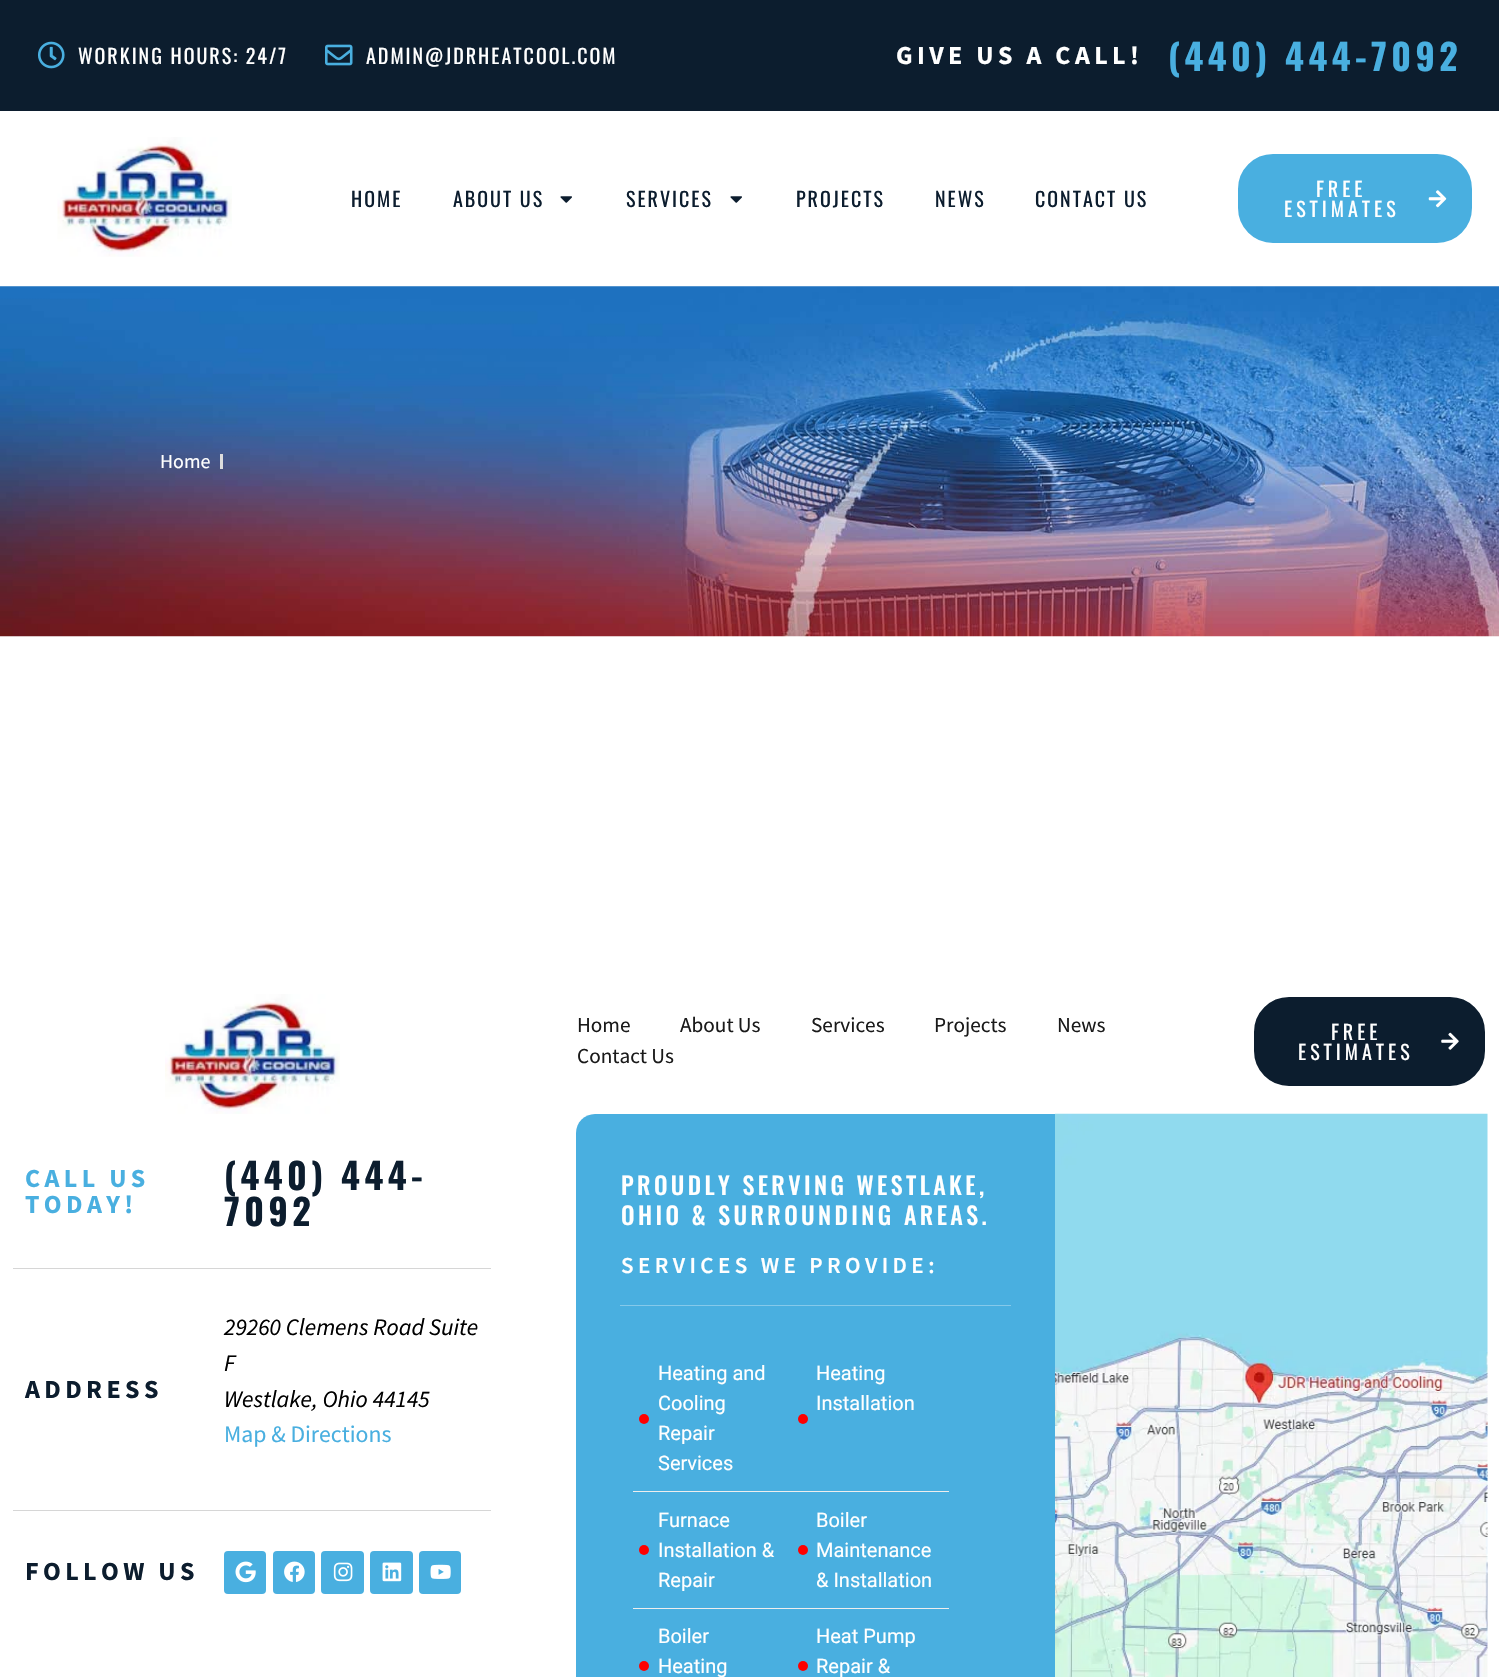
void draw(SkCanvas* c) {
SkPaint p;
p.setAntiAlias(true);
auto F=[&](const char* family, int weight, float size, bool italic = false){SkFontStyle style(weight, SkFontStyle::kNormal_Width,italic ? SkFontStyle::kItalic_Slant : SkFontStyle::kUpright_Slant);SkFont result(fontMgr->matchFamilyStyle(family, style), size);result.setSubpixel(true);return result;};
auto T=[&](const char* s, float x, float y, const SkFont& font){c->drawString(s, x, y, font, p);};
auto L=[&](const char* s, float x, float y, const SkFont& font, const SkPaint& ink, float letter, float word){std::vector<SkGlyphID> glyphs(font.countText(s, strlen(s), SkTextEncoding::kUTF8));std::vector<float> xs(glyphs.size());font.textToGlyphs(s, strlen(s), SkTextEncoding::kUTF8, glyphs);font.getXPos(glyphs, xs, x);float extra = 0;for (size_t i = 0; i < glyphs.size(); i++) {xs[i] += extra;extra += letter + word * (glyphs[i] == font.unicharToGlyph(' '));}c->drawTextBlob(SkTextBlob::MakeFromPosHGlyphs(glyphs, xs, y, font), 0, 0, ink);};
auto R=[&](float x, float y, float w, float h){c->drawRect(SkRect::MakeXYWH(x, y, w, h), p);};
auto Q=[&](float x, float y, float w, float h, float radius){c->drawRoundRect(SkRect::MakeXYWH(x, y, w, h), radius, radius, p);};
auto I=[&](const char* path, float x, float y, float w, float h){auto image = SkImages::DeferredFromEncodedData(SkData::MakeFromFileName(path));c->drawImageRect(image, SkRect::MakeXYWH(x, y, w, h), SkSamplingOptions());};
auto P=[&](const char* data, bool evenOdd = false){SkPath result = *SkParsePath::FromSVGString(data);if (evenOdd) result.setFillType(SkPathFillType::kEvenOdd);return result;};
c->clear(0xffffffff);
p.setColor(0xff0c1d2e);
R(0,0,1499,111);
I("1.png",38,41,27,28);
auto f1 = F("Oswald",400,20);
p.setColor(0xffffffff);
L("WORKING HOURS: 24/7",78,64,f1,p,2,0);
I("2.png",325,44,28,22);
L("ADMIN@JDRHEATCOOL.COM",366,64,f1,p,2,0);
auto f2 = F("Source Sans Pro",700,26);
L("GIVE US A CALL!",896,64,f2,p,4.4,0);
auto f3 = F("Oswald",700,36);
p.setColor(0xff49afe0);
L("(440) 444-7092",1168,71,f3,p,4.4,0);
I("3.png",57,137,175,120);
p.setColor(0xff0c1d2e);
L("HOME",351,207,f1,p,2,0);
L("ABOUT US",453,207,f1,p,2,0);
I("4.png",560,196,12,7);
L("SERVICES",626,207,f1,p,2,0);
I("4.png",730,196,12,7);
L("PROJECTS",796,207,f1,p,2,0);
L("NEWS",935,207,f1,p,2,0);
L("CONTACT US",1035,207,f1,p,2,0);
p.setColor(0xff49afe0);
c->drawRoundRect(SkRect::MakeXYWH(1236.5,152.5,237,92),36.5,36.5,p);
p.setStroke(true);
p.setStrokeWidth(3);
p.setColor(0xffffffff);
c->drawRoundRect(SkRect::MakeXYWH(1236.5,152.5,237,92),36.5,36.5,p);
p.setStroke(false);
L("FREE",1316,197,f1,p,4,0);
L("ESTIMATES",1284,217,f1,p,4,0);
I("5.png",1428,190,19,18);
I("6.png",0,286,1499,351);
auto f4 = F("Source Sans Pro",400,20);
T("Home",160,468,f4);
p.setColor(0xffdddddd);
R(220,454,3,15);
I("7.png",165,994,175,120);
p.setColor(0xff49afe0);
L("CALL US",25,1187,f2,p,4.4,0);
L("TODAY!",25,1213,f2,p,4.4,0);
p.setColor(0xff0c1d2e);
L("(440) 444-",224,1190,f3,p,4.4,0);
L("7092",224,1226,f3,p,4.4,0);
p.setColor(0xffd6d6d6);
R(13,1268,478,1);
p.setColor(0xff0c1d2e);
L("ADDRESS",25,1398,f2,p,4.4,0);
auto f5 = F("Source Sans Pro",400,23.75,true);
p.setColor(0xff000000);
T("29260 Clemens Road Suite",224,1335,f5);
T("F",224,1371,f5);
T("Westlake, Ohio 44145",224,1407,f5);
auto f6 = F("Source Sans Pro",400,23.75);
p.setColor(0xff49afe0);
T("Map & Directions",224,1442,f6);
p.setColor(0xffd6d6d6);
R(13,1510,478,1);
p.setColor(0xff0c1d2e);
L("FOLLOW US",25,1580,f2,p,4.4,0);
p.setColor(0xff49afe0);
Q(224,1551,42,43,4);
I("8.png",235,1561,21,22);
Q(273,1551,42,43,4);
I("9.png",284,1561,21,21);
Q(321,1551,43,43,4);
I("10.png",333,1562,20,20);
Q(370,1551,43,43,4);
I("11.png",382,1562,20,20);
Q(419,1551,42,43,4);
I("12.png",430,1564,21,15);
auto f7 = F("Source Sans Pro",400,21.25);
p.setColor(0xff1a1a1a);
T("Home",577,1032,f7);
T("About Us",680,1032,f7);
T("Services",811,1032,f7);
T("Projects",934,1032,f7);
T("News",1057,1032,f7);
T("Contact Us",577,1063,f7);
p.setColor(0xff0c1d2e);
c->drawRoundRect(SkRect::MakeXYWH(1252.5,995.5,234,92),36.5,36.5,p);
p.setStroke(true);
p.setColor(0xffffffff);
c->drawRoundRect(SkRect::MakeXYWH(1252.5,995.5,234,92),36.5,36.5,p);
p.setStroke(false);
L("FREE",1331,1040,f1,p,4,0);
L("ESTIMATES",1298,1060,f1,p,4,0);
I("13.png",1441,1032,18,18);
p.setColor(0xff49afe0);
c->drawPath(P("M595 1114h460v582h-460c-10.5 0-19-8.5-19-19v-544c0-10.5 8.5-19 19-19z"),p);
auto f8 = F("Oswald",500,24);
p.setColor(0xffffffff);
L("PROUDLY SERVING WESTLAKE,",621,1195,f8,p,3.4,0);
L("OHIO & SURROUNDING AREAS.",621,1225,f8,p,3.4,0);
auto f9 = F("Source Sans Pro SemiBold",600,23);
L("SERVICES WE PROVIDE:",621,1273,f9,p,4.4,0);
p.setColor(0xff85c9ea);
R(620,1305,391,1);
p.setColor(0xffeeeeee);
R(633,1491,316,1);
auto f10 = F("Roboto",400,20);
p.setColor(0xffffffff);
T("Heating and",658,1380,f10);
T("Cooling",658,1410,f10);
p.setColor(0xffff0000);
c->drawCircle(644,1419,5,p);
p.setColor(0xffffffff);
T("Repair",658,1440,f10);
T("Services",658,1470,f10);
T("Heating",816,1380,f10);
T("Installation",816,1410,f10);
p.setColor(0xffff0000);
c->drawCircle(803,1419,5,p);
p.setColor(0xffeeeeee);
R(633,1608,316,1);
p.setColor(0xffffffff);
T("Furnace",658,1527,f10);
p.setColor(0xffff0000);
c->drawCircle(644,1550,5,p);
p.setColor(0xffffffff);
T("Installation &",658,1557,f10);
T("Repair",658,1587,f10);
T("Boiler",816,1527,f10);
p.setColor(0xffff0000);
c->drawCircle(803,1550,5,p);
p.setColor(0xffffffff);
T("Maintenance",816,1557,f10);
T("& Installation",816,1587,f10);
T("Boiler",658,1643,f10);
p.setColor(0xffff0000);
c->drawCircle(644,1666,5,p);
p.setColor(0xffffffff);
T("Heating",658,1673,f10);
T("Heat Pump",816,1643,f10);
p.setColor(0xffff0000);
c->drawCircle(803,1666,5,p);
p.setColor(0xffffffff);
T("Repair &",816,1673,f10);
I("14.png",1055,1113,433,564);
}
